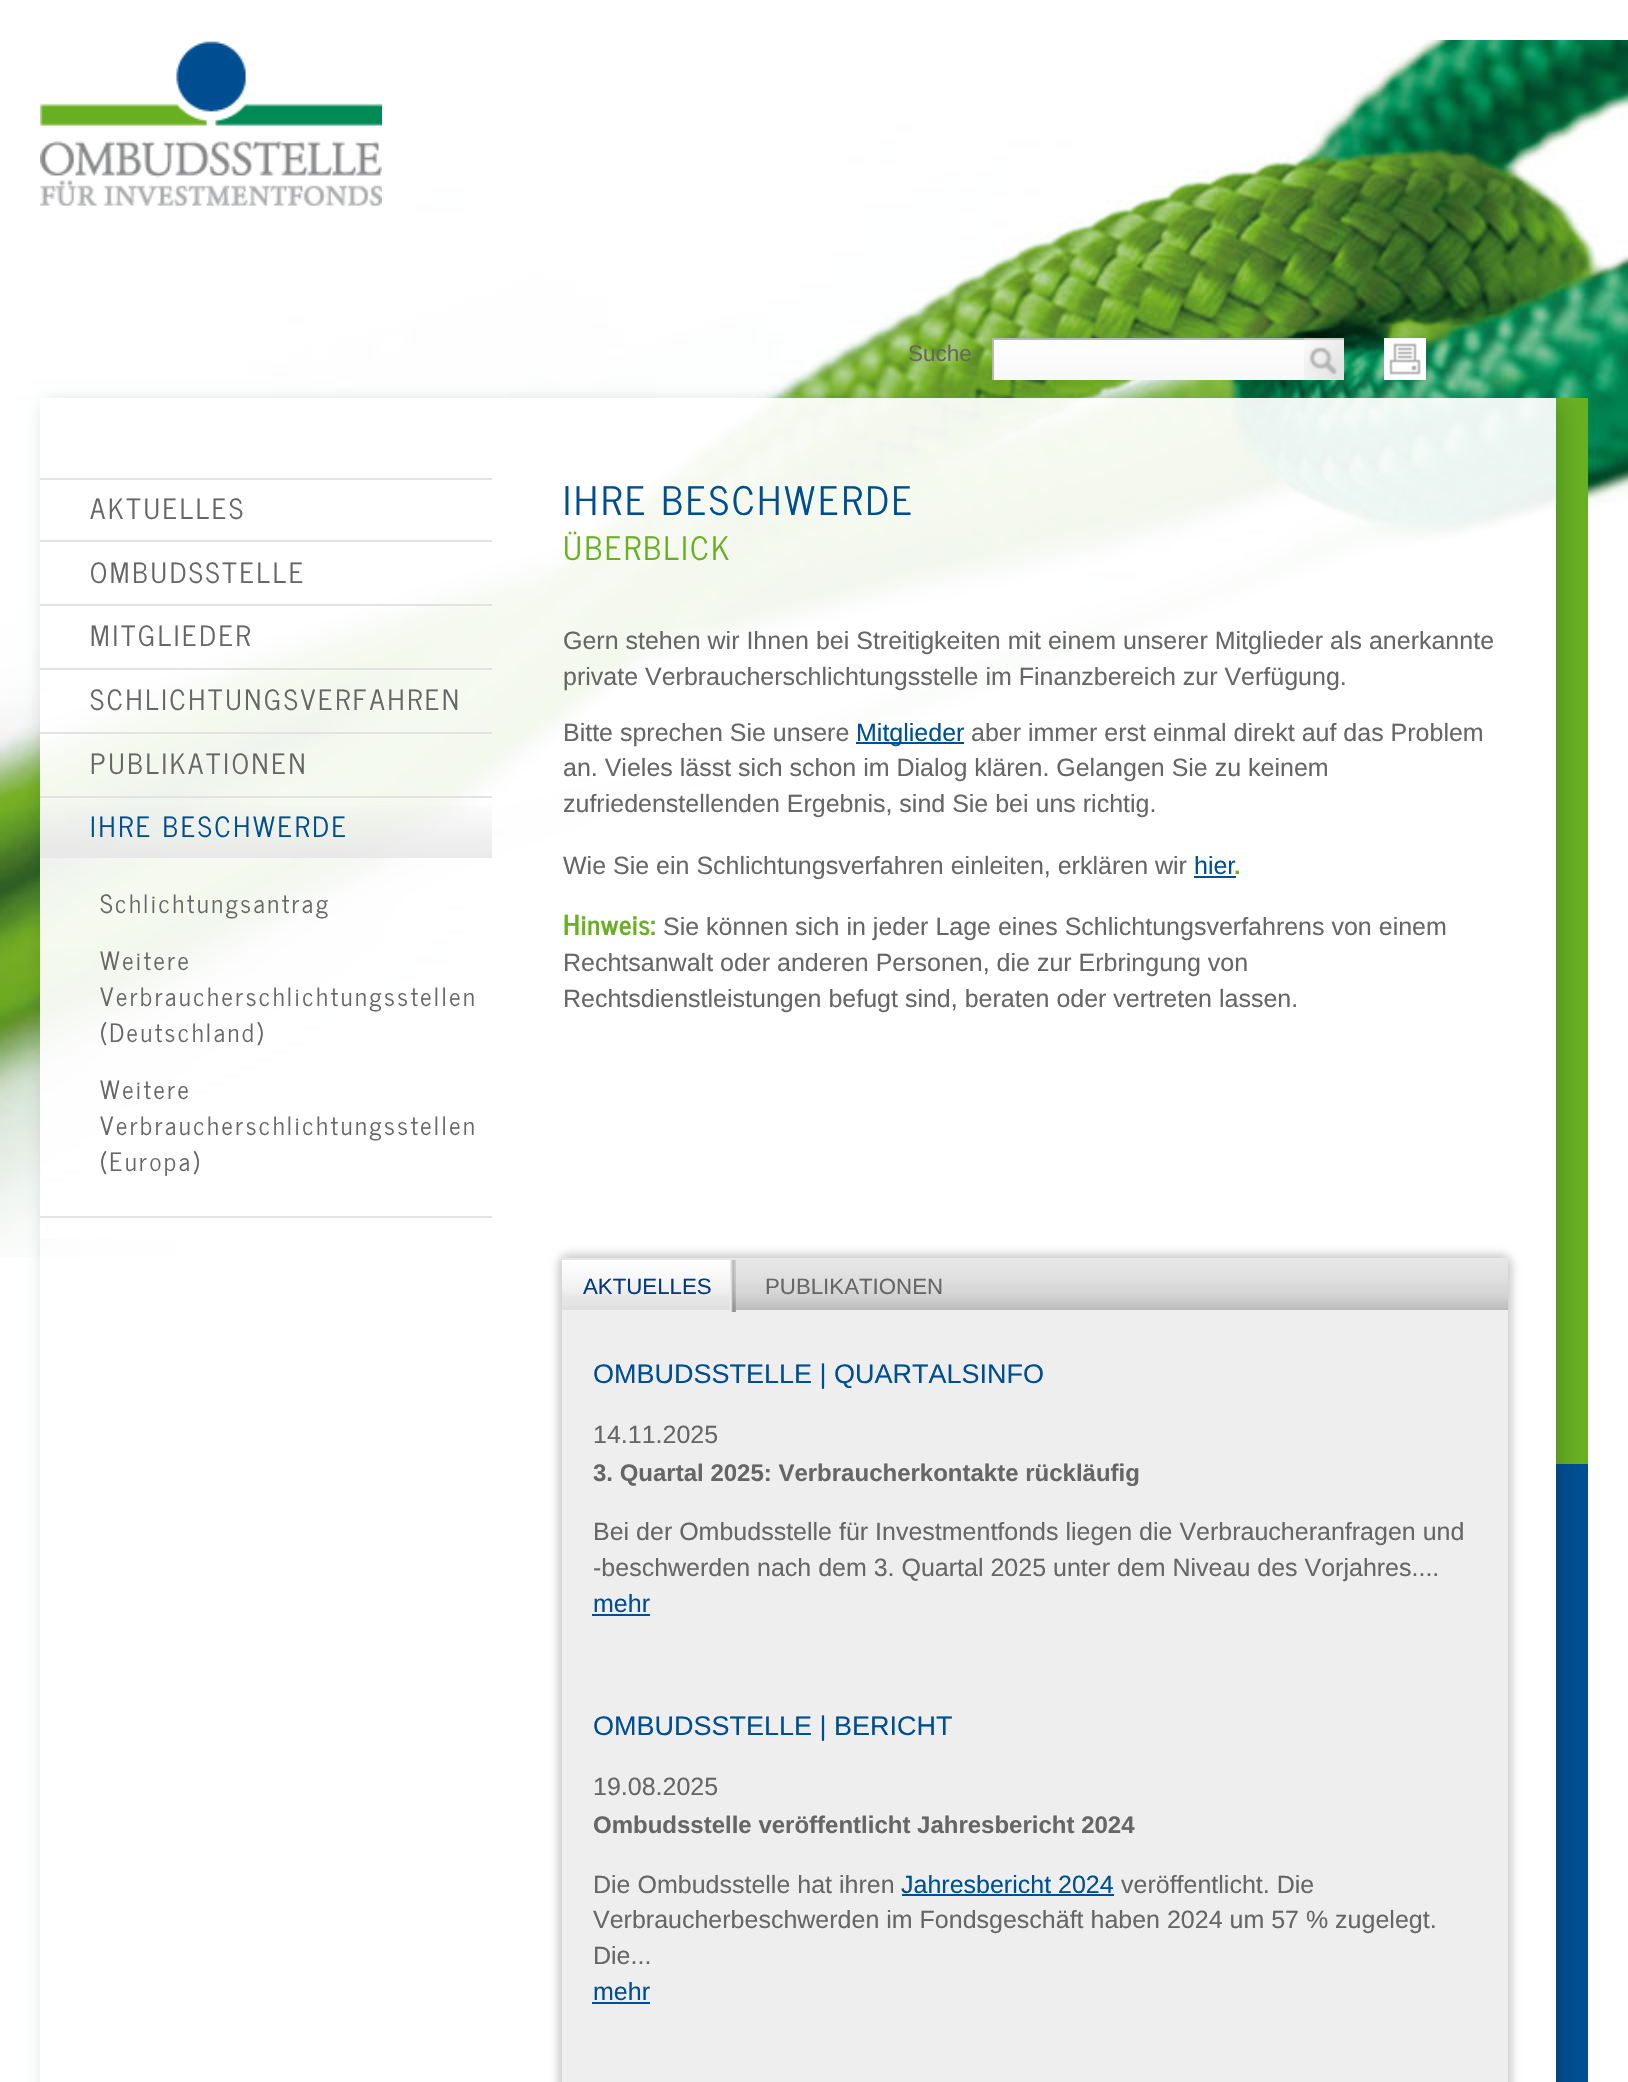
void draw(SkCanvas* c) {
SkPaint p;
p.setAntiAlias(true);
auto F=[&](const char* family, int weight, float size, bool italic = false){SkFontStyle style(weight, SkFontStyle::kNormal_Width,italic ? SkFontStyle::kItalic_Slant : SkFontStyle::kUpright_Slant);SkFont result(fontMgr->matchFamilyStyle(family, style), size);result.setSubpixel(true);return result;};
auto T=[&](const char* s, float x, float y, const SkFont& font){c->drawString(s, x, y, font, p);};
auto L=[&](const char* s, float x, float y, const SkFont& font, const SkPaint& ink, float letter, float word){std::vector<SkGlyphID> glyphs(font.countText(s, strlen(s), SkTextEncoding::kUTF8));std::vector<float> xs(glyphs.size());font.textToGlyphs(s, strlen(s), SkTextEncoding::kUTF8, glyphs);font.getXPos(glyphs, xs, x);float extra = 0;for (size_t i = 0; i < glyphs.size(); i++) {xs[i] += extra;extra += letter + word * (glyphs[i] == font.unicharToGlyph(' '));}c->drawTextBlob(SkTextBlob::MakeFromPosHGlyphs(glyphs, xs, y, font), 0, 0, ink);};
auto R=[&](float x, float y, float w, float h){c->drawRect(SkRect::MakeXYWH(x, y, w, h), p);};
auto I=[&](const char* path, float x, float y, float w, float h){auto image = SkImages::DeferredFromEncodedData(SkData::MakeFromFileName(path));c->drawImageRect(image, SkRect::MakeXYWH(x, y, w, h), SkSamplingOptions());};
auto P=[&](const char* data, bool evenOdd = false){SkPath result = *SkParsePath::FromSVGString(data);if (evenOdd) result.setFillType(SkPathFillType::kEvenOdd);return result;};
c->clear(0xffffffff);
I("1.png",0,40,1628,1217);
I("2.png",40,41,342,165);
auto f1 = F("Liberation Sans",400,22.5);
p.setColor(0xff666666);
T("Suche",908,361,f1);
{
const SkColor colors[] = {0xfffefefe,0xfffefefe,0xfff8f8f8};
const float stops[] = {0,.05,1};
const SkPoint ends[] = {{1149,340}, {1149,380}};
p.setShader(SkGradientShader::MakeLinear(ends, colors, stops, 3, SkTileMode::kClamp));
p.setAlpha(255);
}
R(994,340,310,40);
p.setShader(nullptr);
p.setColor(0xffb7b7b7);
R(992,338,312,2);
R(992,338,2,42);
I("3.png",1304,340,40,40);
p.setColor(0xffcccccc);
R(1304,338,40,2);
I("4.png",1384,338,42,42);
p.setColor(0xff68b022);
R(1556,398,32,1066);
p.setColor(0xff004e92);
R(1556,1464,32,618);
c->save();
c->clipPath(P("M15 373h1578v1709h-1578zm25 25h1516v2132h-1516z",true),true);
p.setColor(0x33001c21);
p.setMaskFilter(SkMaskFilter::MakeBlur(kNormal_SkBlurStyle, 10));
c->drawRect(SkRect::MakeXYWH(46,404,1516,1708),p);
p.setMaskFilter(nullptr);
c->restore();
p.setColor(0xebffffff);
R(40,398,1516,841);
p.setColor(0xffe3e3e2);
R(40,1216,452,2);
R(40,478,452,2);
auto f2 = F("News Cycle",400,27.75);
p.setColor(0xff666666);
L("AKTUELLES",90,519,f2,p,2.75,0);
p.setColor(0xffe3e3e2);
R(40,540,452,2);
p.setColor(0xff666666);
L("OMBUDSSTELLE",90,583,f2,p,2.75,0);
p.setColor(0xffe3e3e2);
R(40,604,452,2);
p.setColor(0xff666666);
L("MITGLIEDER",90,646,f2,p,2.75,0);
p.setColor(0xffe3e3e2);
R(40,668,452,2);
p.setColor(0xff666666);
L("SCHLICHTUNGSVERFAHREN",90,710,f2,p,2.75,0);
p.setColor(0xffe3e3e2);
R(40,732,452,2);
p.setColor(0xff666666);
L("PUBLIKATIONEN",90,774,f2,p,2.75,0);
p.setColor(0xffe3e3e2);
R(40,796,452,2);
{
const SkColor colors[] = {0x00e5e5e5,0xcce5e5e5};
const float stops[] = {0,1};
const SkPoint ends[] = {{266,798}, {266,858}};
p.setShader(SkGradientShader::MakeLinear(ends, colors, stops, 2, SkTileMode::kClamp));
p.setAlpha(255);
}
R(40,805,452,53);
p.setShader(nullptr);
p.setColor(0xff004e92);
L("IHRE BESCHWERDE",90,837,f2,p,2.75,0);
auto f3 = F("News Cycle",400,25);
p.setColor(0xff666666);
L("Schlichtungsantrag",100,913,f3,p,2.5,0);
L("Weitere",100,970,f3,p,2.5,0);
L("Verbraucherschlichtungsstellen",100,1006,f3,p,2.5,0);
L("(Deutschland)",100,1042,f3,p,2.5,0);
L("Weitere",100,1099,f3,p,2.5,0);
L("Verbraucherschlichtungsstellen",100,1135,f3,p,2.5,0);
L("(Europa)",100,1171,f3,p,2.5,0);
auto f4 = F("News Cycle",400,39);
p.setColor(0xff004e92);
L("IHRE BESCHWERDE",563,515,f4,p,3.1,0);
auto f5 = F("News Cycle",400,32);
p.setColor(0xff68b022);
L("ÜBERBLICK",563,560,f5,p,2.5,0);
auto f6 = F("Liberation Sans",400,25);
p.setColor(0xff666666);
T("Gern stehen wir Ihnen bei Streitigkeiten mit einem unserer Mitglieder als anerkannte",563,649,f6);
T("private Verbraucherschlichtungsstelle im Finanzbereich zur Verfügung.",563,685,f6);
T("Bitte sprechen Sie unsere",563,741,f6);
p.setColor(0xff004e92);
R(856,742,108,2);
T("Mitglieder",856,741,f6);
p.setColor(0xff666666);
T("aber immer erst einmal direkt auf das Problem",971,741,f6);
T("an. Vieles lässt sich schon im Dialog klären. Gelangen Sie zu keinem",563,776,f6);
T("zufriedenstellenden Ergebnis, sind Sie bei uns richtig.",563,812,f6);
T("Wie Sie ein Schlichtungsverfahren einleiten, erklären wir",563,874,f6);
p.setColor(0xff004e92);
T("hier",1194,874,f6);
R(1194,876,42,2);
auto f7 = F("News Cycle",700,27.5);
p.setColor(0xff68b022);
L(".",1235,874,f7,p,.5,0);
L("Hinweis:",563,935,f7,p,.5,0);
p.setColor(0xff666666);
T("Sie können sich in jeder Lage eines Schlichtungsverfahrens von einem",663,935,f6);
T("Rechtsanwalt oder anderen Personen, die zur Erbringung von",563,971,f6);
T("Rechtsdienstleistungen befugt sind, beraten oder vertreten lassen.",563,1007,f6);
p.setColor(0xffcccccc);
p.setMaskFilter(SkMaskFilter::MakeBlur(kNormal_SkBlurStyle, 4));
c->drawRoundRect(SkRect::MakeXYWH(558,1254,954,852),12,12,p);
p.setMaskFilter(nullptr);
p.setColor(0xffeeeeee);
R(562,1310,946,772);
I("5.png",562,1258,946,52);
I("6.png",730,1260,6,52);
I("7.png",562,1260,168,50);
auto f8 = F("Liberation Sans",400,22.25);
p.setColor(0xff043882);
T("AKTUELLES",583,1294,f8);
p.setColor(0xff666666);
T("PUBLIKATIONEN",765,1294,f8);
auto f9 = F("Liberation Sans",400,27);
p.setColor(0xff004e92);
T("OMBUDSSTELLE | QUARTALSINFO",593,1383,f9);
p.setColor(0xff666666);
T("14.11.2025",593,1443,f6);
auto f10 = F("Liberation Sans",700,24);
T("3. Quartal 2025: Verbraucherkontakte rückläufig",593,1481,f10);
T("Bei der Ombudsstelle für Investmentfonds liegen die Verbraucheranfragen und",593,1540,f6);
T("-beschwerden nach dem 3. Quartal 2025 unter dem Niveau des Vorjahres....",593,1576,f6);
p.setColor(0xff004e92);
T("mehr",593,1612,f6);
R(592,1614,58,2);
T("OMBUDSSTELLE | BERICHT",593,1735,f9);
p.setColor(0xff666666);
T("19.08.2025",593,1795,f6);
T("Ombudsstelle veröffentlicht Jahresbericht 2024",593,1833,f10);
T("Die Ombudsstelle hat ihren",593,1893,f6);
p.setColor(0xff004e92);
T("Jahresbericht 2024",901,1893,f6);
R(902,1894,212,2);
p.setColor(0xff666666);
T("veröffentlicht. Die",1121,1893,f6);
T("Verbraucherbeschwerden im Fondsgeschäft haben 2024 um 57 % zugelegt.",593,1928,f6);
T("Die...",593,1964,f6);
p.setColor(0xff004e92);
T("mehr",593,2000,f6);
R(592,2002,58,2);
}
